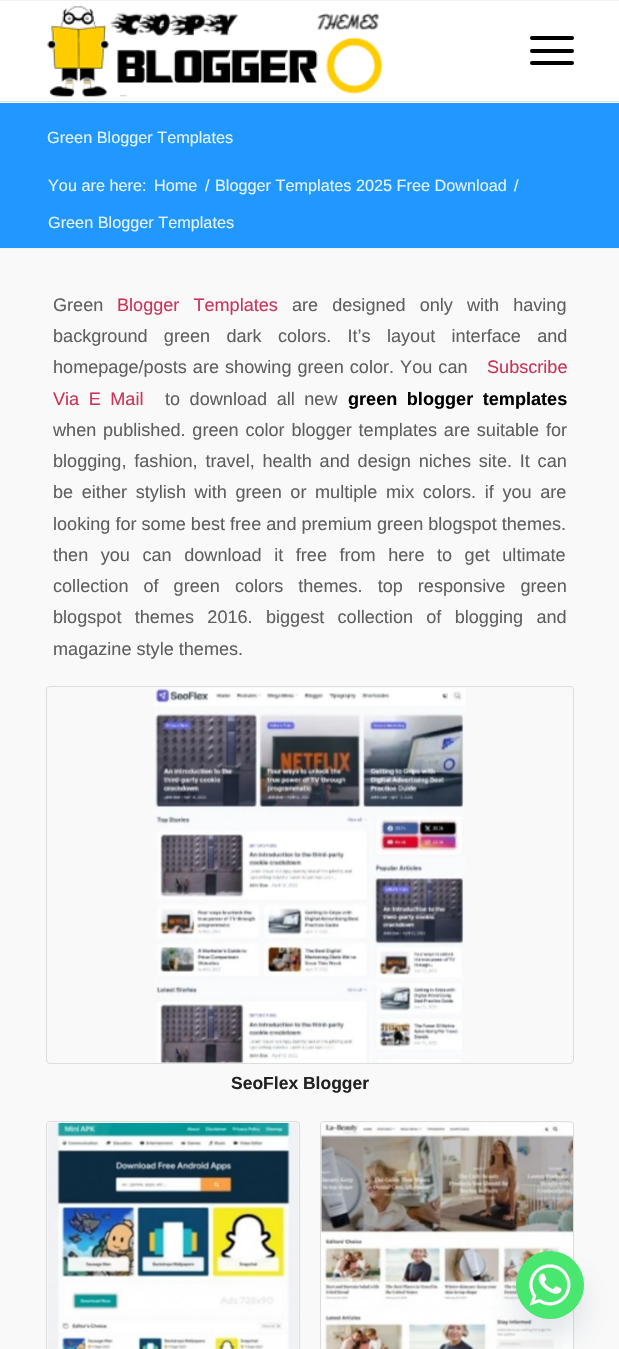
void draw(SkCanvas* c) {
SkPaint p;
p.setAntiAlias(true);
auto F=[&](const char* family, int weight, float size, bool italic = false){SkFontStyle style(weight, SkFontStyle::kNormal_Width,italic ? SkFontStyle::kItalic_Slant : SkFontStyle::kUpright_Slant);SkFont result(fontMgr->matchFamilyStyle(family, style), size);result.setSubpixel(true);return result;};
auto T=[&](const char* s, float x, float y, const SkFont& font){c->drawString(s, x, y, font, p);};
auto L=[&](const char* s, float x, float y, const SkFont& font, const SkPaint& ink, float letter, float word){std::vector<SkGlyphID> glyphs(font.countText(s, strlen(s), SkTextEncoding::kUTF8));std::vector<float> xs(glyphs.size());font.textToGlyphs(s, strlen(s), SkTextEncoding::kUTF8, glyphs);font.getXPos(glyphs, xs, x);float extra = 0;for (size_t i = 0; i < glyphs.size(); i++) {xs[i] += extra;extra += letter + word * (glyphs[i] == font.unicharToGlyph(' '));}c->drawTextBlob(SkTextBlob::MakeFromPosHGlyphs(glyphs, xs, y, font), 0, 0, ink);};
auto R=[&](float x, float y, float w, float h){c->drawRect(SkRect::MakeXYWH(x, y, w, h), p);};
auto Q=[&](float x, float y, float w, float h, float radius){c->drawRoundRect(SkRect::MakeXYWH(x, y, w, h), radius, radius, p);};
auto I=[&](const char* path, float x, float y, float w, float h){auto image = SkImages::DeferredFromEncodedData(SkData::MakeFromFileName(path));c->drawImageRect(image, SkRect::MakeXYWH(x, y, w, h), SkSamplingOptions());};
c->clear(0xff2198ff);
p.setColor(0xfff2f2f2);
R(0,0,619,1);
p.setColor(0xffffffff);
R(0,1,619,102);
p.setColor(0xffdddddd);
R(0,101,619,1);
I("1.png",47,6,336,91);
p.setColor(0xff000000);
Q(530,49,44,4,2);
Q(530,36,44,4,2);
Q(530,61,44,4,2);
auto f1 = F("Liberation Sans",400,16.25);
p.setColor(0xffe4f3ff);
T("Green Blogger Templates",47,143,f1);
T("You are here:",48,191,f1);
T("Home",154,191,f1);
T("/",205,191,f1);
T("Blogger Templates 2025 Free Download",215,191,f1);
T("/",514,191,f1);
T("Green Blogger Templates",48,228,f1);
p.setColor(0xfff9f9f9);
R(0,249,619,1100);
p.setColor(0xfff2f2f2);
R(0,248,619,1);
auto f2 = F("Liberation Sans",400,18.1);
p.setColor(0xff5f5f5f);
T("Green",53,311,f2);
p.setColor(0xffcb3357);
L("Blogger Templates",117,311,f2,p,0,9);
p.setColor(0xff5f5f5f);
L("are designed only with having",292,311,f2,p,0,9);
L("background green dark colors. It’s layout interface and",53,342,f2,p,0,11.25);
L("homepage/posts are showing green color. You can",53,373,f2,p,0,1);
p.setColor(0xffcb3357);
T("Subscribe",487,373,f2);
L("Via E Mail",53,405,f2,p,0,4.5);
p.setColor(0xff5f5f5f);
L("to download all new",165,405,f2,p,0,4.5);
auto f3 = F("Liberation Sans",700,18.1);
p.setColor(0xff000000);
L("green blogger templates",348,405,f3,p,0,4.5);
p.setColor(0xff5f5f5f);
L("when published. green color blogger templates are suitable for",53,436,f2,p,0,1.75);
L("blogging, fashion, travel, health and design niches site. It can",53,467,f2,p,0,2.75);
L("be either stylish with green or multiple mix colors. if you are",53,498,f2,p,0,3.6);
T("looking for some best free and premium green blogspot themes.",53,530,f2);
L("then you can download it free from here to get ultimate",53,561,f2,p,0,7.5);
L("collection of green colors themes. top responsive green",53,592,f2,p,0,10);
L("blogspot themes 2016. biggest collection of blogging and",53,623,f2,p,0,8.25);
T("magazine style themes.",53,655,f2);
p.setStroke(true);
p.setStrokeWidth(1);
p.setColor(0xffdddddd);
c->drawRoundRect(SkRect::MakeXYWH(46.5,686.5,527,377),3.5,3.5,p);
I("2.png",154,688,312,375);
auto f4 = F("Liberation Sans",700,17.5);
p.setStroke(false);
p.setColor(0xff222222);
T("SeoFlex Blogger",231,1089,f4);
p.setStroke(true);
p.setColor(0xffdddddd);
c->drawRoundRect(SkRect::MakeXYWH(46.5,1121.5,253,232),3.5,3.5,p);
I("3.png",48,1123,251,226);
c->drawRoundRect(SkRect::MakeXYWH(320.5,1121.5,253,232),3.5,3.5,p);
I("4.png",321,1123,252,226);
p.setStroke(false);
p.setColor(0x2949687e);
p.setMaskFilter(SkMaskFilter::MakeBlur(kNormal_SkBlurStyle, 15));
c->drawRoundRect(SkRect::MakeXYWH(516,1271,68,68),34,34,p);
p.setMaskFilter(nullptr);
p.setColor(0xff49e670);
c->drawCircle(550,1285,34,p);
I("5.png",516,1251,68,68);
}
